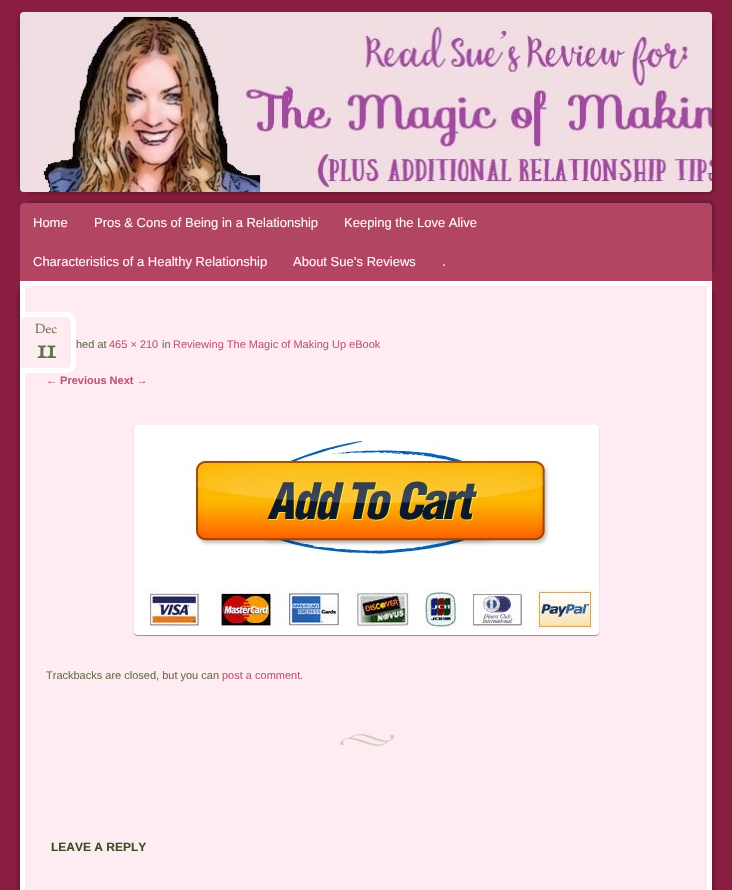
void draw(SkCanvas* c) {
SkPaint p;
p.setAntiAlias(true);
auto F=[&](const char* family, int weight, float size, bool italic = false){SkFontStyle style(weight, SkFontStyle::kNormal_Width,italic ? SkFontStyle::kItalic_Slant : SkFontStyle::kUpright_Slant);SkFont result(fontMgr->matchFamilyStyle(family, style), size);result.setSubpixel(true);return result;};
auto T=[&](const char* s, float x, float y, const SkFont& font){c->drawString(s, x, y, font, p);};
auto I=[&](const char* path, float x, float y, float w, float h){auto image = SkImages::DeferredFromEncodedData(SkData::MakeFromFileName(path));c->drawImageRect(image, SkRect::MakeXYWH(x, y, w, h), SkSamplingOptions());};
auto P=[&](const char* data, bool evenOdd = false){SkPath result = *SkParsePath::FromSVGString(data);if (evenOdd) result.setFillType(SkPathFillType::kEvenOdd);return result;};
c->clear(0xff891e42);
p.setColor(0x80000000);
p.setMaskFilter(SkMaskFilter::MakeBlur(kNormal_SkBlurStyle, 2.5));
c->drawRect(SkRect::MakeXYWH(20,17,682,170),p);
p.setMaskFilter(nullptr);
p.setMaskFilter(SkMaskFilter::MakeBlur(kNormal_SkBlurStyle, 2.5));
c->drawRect(SkRect::MakeXYWH(30,22,682,170),p);
p.setMaskFilter(nullptr);
I("1.png",20,12,692,180);
p.setMaskFilter(SkMaskFilter::MakeBlur(kNormal_SkBlurStyle, 2.5));
c->drawRect(SkRect::MakeXYWH(30,203,682,68),p);
p.setMaskFilter(nullptr);
p.setColor(0xffb14562);
c->drawPath(P("M24 203h684c2 0 4 2 4 4v74h-692v-74c0-2 2-4 4-4z"),p);
auto f1 = F("Liberation Sans",400,13);
p.setColor(0xfffff4f9);
T("Home",33,227,f1);
T("Pros & Cons of Being in a Relationship",94,227,f1);
T("Keeping the Love Alive",344,227,f1);
T("Characteristics of a Healthy Relationship",33,266,f1);
T("About Sue’s Reviews",293,266,f1);
T(".",442,266,f1);
p.setColor(0x80000000);
p.setMaskFilter(SkMaskFilter::MakeBlur(kNormal_SkBlurStyle, 2.5));
c->drawRect(SkRect::MakeXYWH(20,291,682,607),p);
p.setMaskFilter(nullptr);
p.setMaskFilter(SkMaskFilter::MakeBlur(kNormal_SkBlurStyle, 2.5));
c->drawRect(SkRect::MakeXYWH(30,291,682,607),p);
p.setMaskFilter(nullptr);
p.setColor(0xffffebf2);
c->drawRect(SkRect::MakeXYWH(22.5,283.5,687,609),p);
p.setStroke(true);
p.setStrokeWidth(5);
p.setColor(0xffffffff);
c->drawRect(SkRect::MakeXYWH(22.5,283.5,687,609),p);
I("2.png",340,734,54,12);
p.setStroke(false);
p.setColor(0xffffebf2);
c->drawPath(P("M21 317h45c3 0 5 2 5 5v41c0 3-2 5-5 5h-45z"),p);
p.setColor(0xffffffff);
c->drawPath(P("M21 312h45c6 0 10 4 10 10v41c0 6-4 10-10 10h-45zm0 5h45c3 0 5 2 5 5v41c0 3-2 5-5 5h-45z",true),p);
auto f2 = F("Sorts Mill Goudy",400,13);
p.setColor(0xff63724b);
T("Dec",35,333,f2);
auto f3 = F("Sorts Mill Goudy",700,28);
T("11",37,358,f3);
auto f4 = F("Liberation Sans",400,11);
T("hed at",76,348,f4);
p.setColor(0xffbb5974);
T("465 × 210",109,348,f4);
p.setColor(0xff63724b);
T("in",162,348,f4);
p.setColor(0xffbb5974);
T("Reviewing The Magic of Making Up eBook",173,348,f4);
auto f5 = F("Liberation Sans",700,11);
T("← Previous Next →",46,384,f5);
p.setColor(0x66000000);
p.setMaskFilter(SkMaskFilter::MakeBlur(kNormal_SkBlurStyle, .5));
c->drawRoundRect(SkRect::MakeXYWH(134,426,465,210),4,4,p);
p.setMaskFilter(nullptr);
I("3.png",134,425,465,210);
p.setColor(0xff63724b);
T("Trackbacks are closed, but you can",46,679,f4);
p.setColor(0xffbb5974);
T("post a comment",222,679,f4);
p.setColor(0xff63724b);
T(".",300,679,f4);
auto f6 = F("Liberation Sans",700,12);
p.setColor(0xff3b4a26);
T("LEAVE A REPLY",51,851,f6);
}
